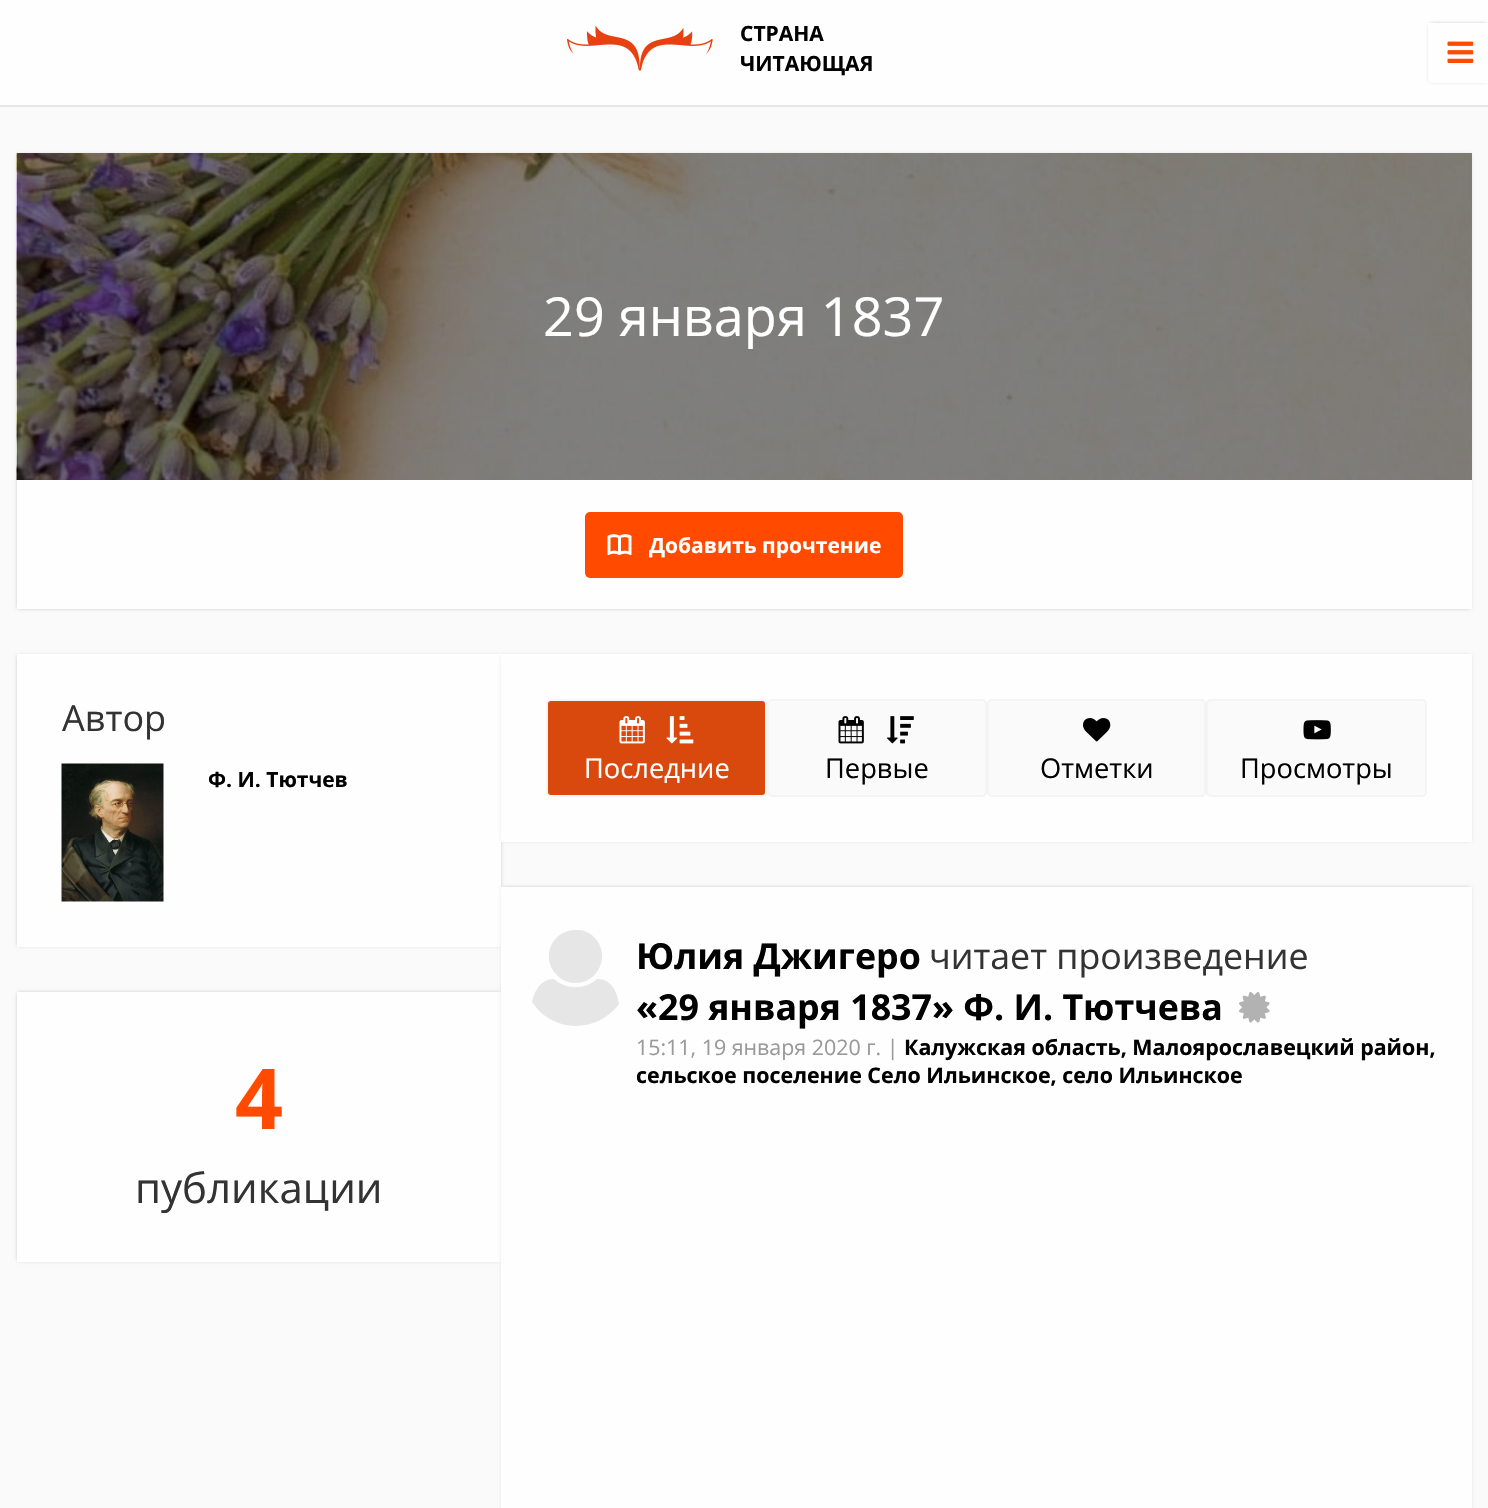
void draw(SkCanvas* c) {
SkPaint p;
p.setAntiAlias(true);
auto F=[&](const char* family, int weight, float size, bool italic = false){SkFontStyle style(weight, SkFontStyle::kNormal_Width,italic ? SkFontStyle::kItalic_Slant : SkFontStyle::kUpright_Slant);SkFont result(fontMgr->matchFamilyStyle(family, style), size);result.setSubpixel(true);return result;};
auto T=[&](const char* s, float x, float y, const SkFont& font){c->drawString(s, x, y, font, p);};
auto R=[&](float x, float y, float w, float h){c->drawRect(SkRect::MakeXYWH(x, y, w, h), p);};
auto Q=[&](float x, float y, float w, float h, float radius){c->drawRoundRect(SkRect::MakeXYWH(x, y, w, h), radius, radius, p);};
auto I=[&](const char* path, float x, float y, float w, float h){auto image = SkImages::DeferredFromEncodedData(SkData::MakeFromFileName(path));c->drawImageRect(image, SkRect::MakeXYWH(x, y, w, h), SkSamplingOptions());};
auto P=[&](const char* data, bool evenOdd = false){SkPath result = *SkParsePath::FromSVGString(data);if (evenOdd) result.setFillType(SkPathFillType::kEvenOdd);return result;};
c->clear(0xfffafafa);
p.setColor(0xfffefefe);
R(0,0,1488,105);
p.setColor(0xffe6e6e6);
R(0,105,1488,2);
I("1.png",567,26,146,45);
auto f1 = F("Open Sans",700,21);
p.setColor(0xff010101);
T("СТРАНА",740,41,f1);
T("ЧИТАЮЩАЯ",740,71,f1);
p.setColor(0x4d000000);
p.setMaskFilter(SkMaskFilter::MakeBlur(kNormal_SkBlurStyle, 2));
c->drawRoundRect(SkRect::MakeXYWH(1430,24,57,57),3,3,p);
p.setMaskFilter(nullptr);
p.setColor(0xfffefefe);
c->drawPath(P("M1428 23h60v60h-55c-3 0-5-2-5-5z"),p);
I("2.png",1447,41,27,22);
p.setColor(0x4d000000);
p.setMaskFilter(SkMaskFilter::MakeBlur(kNormal_SkBlurStyle, 2));
c->drawRect(SkRect::MakeXYWH(18,155,1452,453),p);
p.setMaskFilter(nullptr);
p.setColor(0xfffefefe);
R(17,153,1455,456);
I("3.png",16,153,1456,327);
p.setColor(0x80000000);
R(17,153,1455,327);
auto f2 = F("Open Sans",400,54);
p.setColor(0xffffffff);
T("29 января 1837",543,336,f2);
p.setColor(0xffff4a00);
Q(585,512,318,66,5);
I("4.png",607,534,25,22);
p.setColor(0xffffffff);
T("Добавить прочтение",649,553,f1);
p.setColor(0x4d000000);
p.setMaskFilter(SkMaskFilter::MakeBlur(kNormal_SkBlurStyle, 2));
c->drawRect(SkRect::MakeXYWH(18,656,482,289),p);
p.setMaskFilter(nullptr);
p.setColor(0xfffefefe);
R(17,654,484,293);
auto f3 = F("Open Sans",400,36);
p.setColor(0xff333333);
T("Автор",62,731,f3);
I("5.png",61,763,103,139);
p.setColor(0xff010101);
T("Ф. И. Тютчев",208,787,f1);
p.setColor(0x4d000000);
p.setMaskFilter(SkMaskFilter::MakeBlur(kNormal_SkBlurStyle, 2));
c->drawRect(SkRect::MakeXYWH(18,993,482,267),p);
p.setMaskFilter(nullptr);
p.setColor(0xfffefefe);
R(17,992,484,270);
auto f4 = F("Open Sans",700,84);
p.setColor(0xffff4a00);
T("4",235,1129,f4);
auto f5 = F("Open Sans",400,42);
p.setColor(0xff333333);
T("публикации",135,1203,f5);
p.setColor(0x4d000000);
p.setMaskFilter(SkMaskFilter::MakeBlur(kNormal_SkBlurStyle, 2));
c->drawRect(SkRect::MakeXYWH(503,656,967,184),p);
p.setMaskFilter(nullptr);
p.setColor(0xfffefefe);
R(501,654,971,188);
p.setColor(0xffd9490e);
c->drawRoundRect(SkRect::MakeXYWH(547,700,219,96),4,4,p);
p.setStroke(true);
p.setStrokeWidth(2);
p.setColor(0xfff4f4f4);
c->drawRoundRect(SkRect::MakeXYWH(547,700,219,96),4,4,p);
I("6.png",619,716,26,28);
I("7.png",666,716,28,28);
auto f6 = F("Open Sans",400,27.25);
p.setStroke(false);
p.setColor(0xffffffff);
T("Последние",584,778,f6);
p.setColor(0xfffafafa);
c->drawRoundRect(SkRect::MakeXYWH(768,700,218,96),4,4,p);
p.setStroke(true);
p.setColor(0xfff4f4f4);
c->drawRoundRect(SkRect::MakeXYWH(768,700,218,96),4,4,p);
I("8.png",838,716,26,28);
I("9.png",887,716,27,28);
p.setStroke(false);
p.setColor(0xff010101);
T("Первые",825,778,f6);
p.setColor(0xfffafafa);
c->drawRoundRect(SkRect::MakeXYWH(988,700,217,96),4,4,p);
p.setStroke(true);
p.setColor(0xfff4f4f4);
c->drawRoundRect(SkRect::MakeXYWH(988,700,217,96),4,4,p);
I("10.png",1083,718,28,24);
p.setStroke(false);
p.setColor(0xff010101);
T("Отметки",1040,778,f6);
p.setColor(0xfffafafa);
c->drawRoundRect(SkRect::MakeXYWH(1207,700,219,96),4,4,p);
p.setStroke(true);
p.setColor(0xfff4f4f4);
c->drawRoundRect(SkRect::MakeXYWH(1207,700,219,96),4,4,p);
I("11.png",1303,720,28,20);
p.setStroke(false);
p.setColor(0xff010101);
T("Просмотры",1240,778,f6);
p.setColor(0x4d000000);
p.setMaskFilter(SkMaskFilter::MakeBlur(kNormal_SkBlurStyle, 2));
c->drawRect(SkRect::MakeXYWH(503,888,967,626),p);
p.setMaskFilter(nullptr);
p.setColor(0xfffefefe);
R(501,887,971,621);
p.setColor(0xffe6e6e6);
c->drawPath(P("M619 1004c-22 30-67 29-87-2c3-12 9-23 22-23c12 11 31 11 43 0c15 0 20 13 22 25zm-25-67c-4-4-10-7-16-7c-25-2-39 27-21 45c4 5 10 7 16 8c25 2 39-28 21-46z",true),p);
auto f7 = F("Open Sans",700,35.75);
p.setColor(0xff010101);
T("Юлия Джигеро",636,969,f7);
auto f8 = F("Open Sans",400,35.75);
p.setColor(0xff333333);
T("читает произведение",929,969,f8);
p.setColor(0xff010101);
T("«29 января 1837» Ф. И. Тютчева",636,1020,f7);
I("12.png",1239,992,31,31);
auto f9 = F("Open Sans",400,21.4);
p.setColor(0xff999999);
T("15:11, 19 января 2020 г. |",636,1055,f9);
auto f10 = F("Open Sans",700,21.4);
p.setColor(0xff010101);
T("Калужская область, Малоярославецкий район,",904,1055,f10);
T("сельское поселение Село Ильинское, село Ильинское",636,1083,f10);
}
